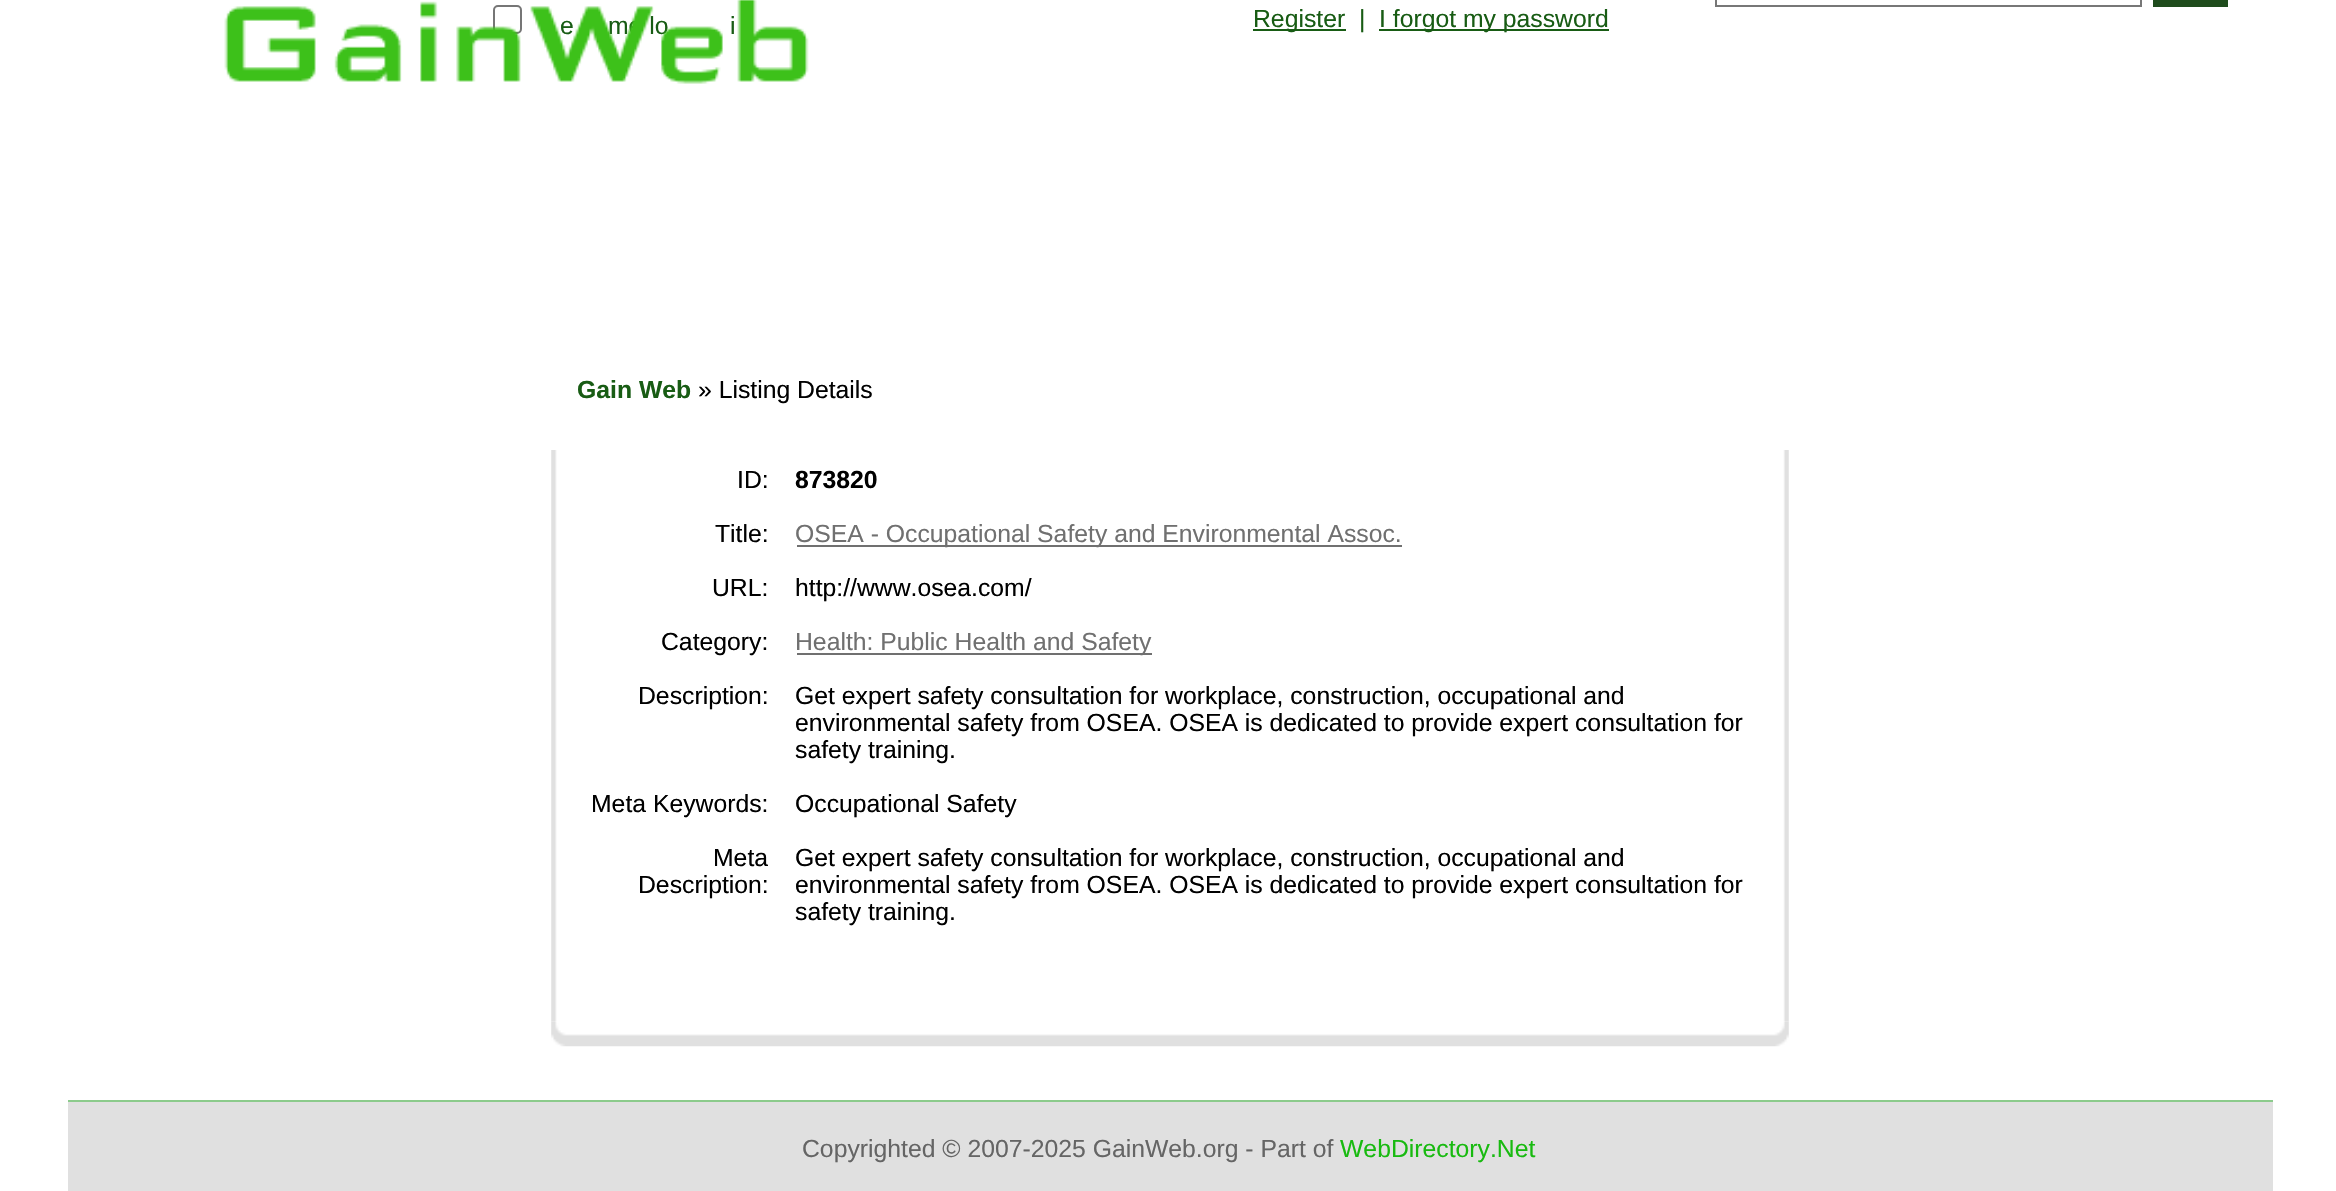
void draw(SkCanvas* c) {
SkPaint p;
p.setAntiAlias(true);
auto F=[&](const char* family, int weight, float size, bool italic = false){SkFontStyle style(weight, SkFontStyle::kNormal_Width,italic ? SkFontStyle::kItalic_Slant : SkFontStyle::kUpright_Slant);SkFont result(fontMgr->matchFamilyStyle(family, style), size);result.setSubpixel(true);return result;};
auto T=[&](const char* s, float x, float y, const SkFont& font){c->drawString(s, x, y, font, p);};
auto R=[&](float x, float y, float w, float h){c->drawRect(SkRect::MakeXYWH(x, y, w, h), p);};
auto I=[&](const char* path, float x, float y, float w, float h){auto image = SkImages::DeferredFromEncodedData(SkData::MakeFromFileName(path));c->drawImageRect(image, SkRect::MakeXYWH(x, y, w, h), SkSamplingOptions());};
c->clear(0xffffffff);
p.setStroke(true);
p.setStrokeWidth(2);
p.setColor(0xff767676);
c->drawRoundRect(SkRect::MakeXYWH(494,6,27,27),4,4,p);
auto f1 = F("Liberation Sans",400,24.75);
p.setStroke(false);
p.setColor(0xff185c14);
T("e",560,34,f1);
T("me lo",608,34,f1);
T("i",730,34,f1);
I("1.png",224,0,585,84);
p.setStroke(true);
p.setColor(0xff777777);
c->drawRect(SkRect::MakeXYWH(1716,-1,425,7),p);
p.setStroke(false);
p.setColor(0xff1f4c1d);
R(2153,0,75,7);
p.setColor(0xff185c14);
R(1253,29,93,2);
T("Register",1253,27,f1);
T("|",1359,27,f1);
R(1379,29,230,2);
T("I forgot my password",1379,27,f1);
auto f2 = F("Liberation Sans",700,24.75);
T("Gain Web",577,398,f2);
p.setColor(0xff000000);
T("» Listing Details",698,398,f1);
I("2.png",551,450,1238,572);
T("ID:",737,488,f1);
T("873820",795,488,f2);
T("Title:",715,542,f1);
p.setColor(0xff707070);
R(797,545,605,2);
T("OSEA - Occupational Safety and Environmental Assoc.",795,542,f1);
p.setColor(0xff000000);
T("URL:",712,596,f1);
T("http://www.osea.com/",795,596,f1);
T("Category:",661,650,f1);
p.setColor(0xff707070);
R(797,653,355,2);
T("Health: Public Health and Safety",795,650,f1);
p.setColor(0xff000000);
T("Description:",638,704,f1);
T("Get expert safety consultation for workplace, construction, occupational and",795,704,f1);
T("environmental safety from OSEA. OSEA is dedicated to provide expert consultation for",795,731,f1);
T("safety training.",795,758,f1);
T("Meta Keywords:",591,812,f1);
T("Occupational Safety",795,812,f1);
T("Meta",713,866,f1);
T("Description:",638,893,f1);
T("Get expert safety consultation for workplace, construction, occupational and",795,866,f1);
T("environmental safety from OSEA. OSEA is dedicated to provide expert consultation for",795,893,f1);
T("safety training.",795,920,f1);
I("3.png",551,1021,1238,26);
p.setColor(0xffe0e0e0);
R(68,1102,2205,89);
p.setColor(0xff8ccb8c);
R(68,1100,2205,2);
p.setColor(0xff656565);
T("Copyrighted © 2007-2025 GainWeb.org - Part of",802,1157,f1);
p.setColor(0xff18ba10);
T("WebDirectory.Net",1340,1157,f1);
}
